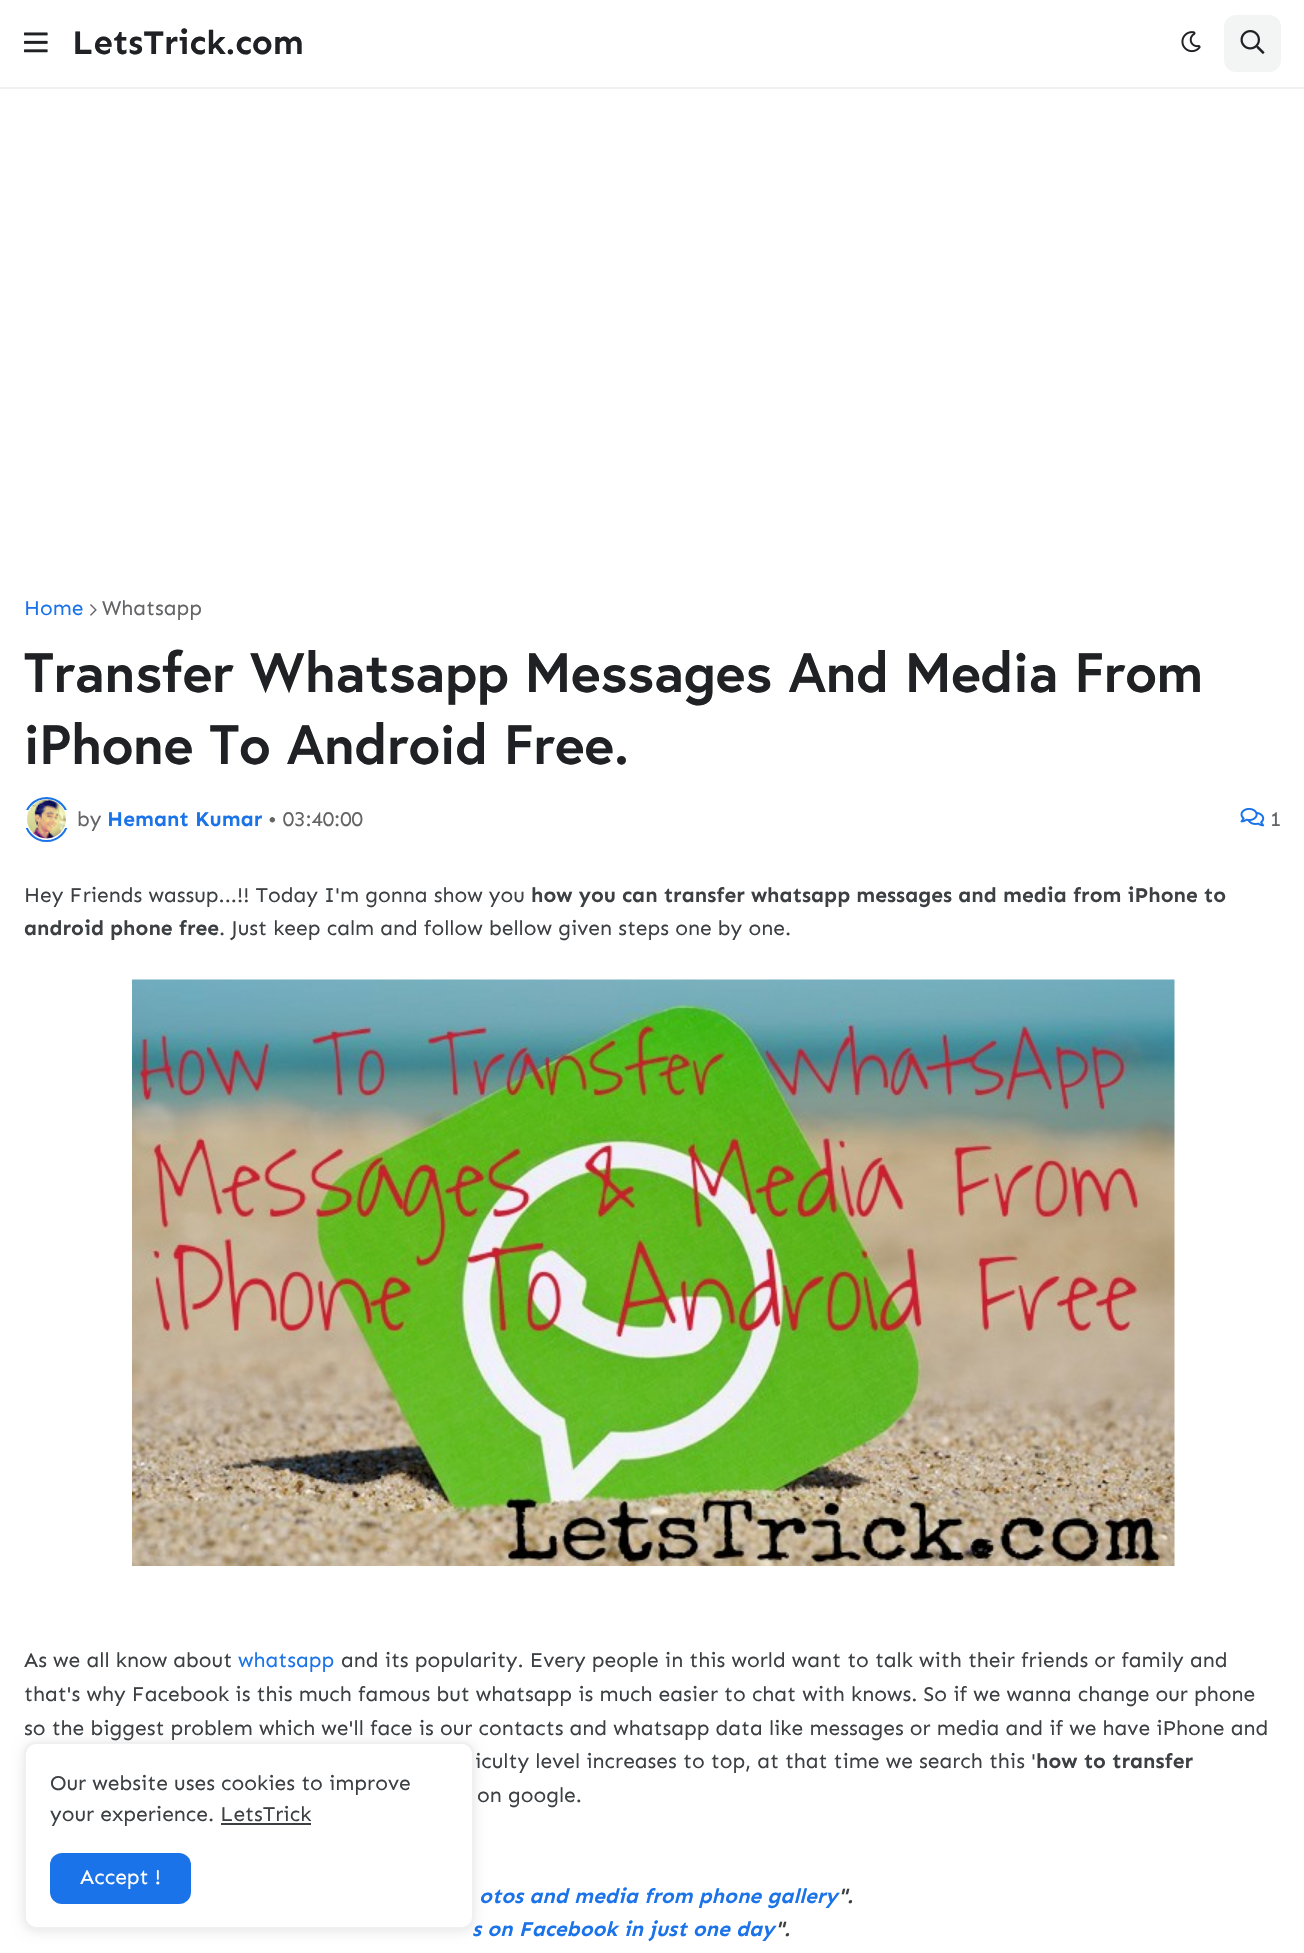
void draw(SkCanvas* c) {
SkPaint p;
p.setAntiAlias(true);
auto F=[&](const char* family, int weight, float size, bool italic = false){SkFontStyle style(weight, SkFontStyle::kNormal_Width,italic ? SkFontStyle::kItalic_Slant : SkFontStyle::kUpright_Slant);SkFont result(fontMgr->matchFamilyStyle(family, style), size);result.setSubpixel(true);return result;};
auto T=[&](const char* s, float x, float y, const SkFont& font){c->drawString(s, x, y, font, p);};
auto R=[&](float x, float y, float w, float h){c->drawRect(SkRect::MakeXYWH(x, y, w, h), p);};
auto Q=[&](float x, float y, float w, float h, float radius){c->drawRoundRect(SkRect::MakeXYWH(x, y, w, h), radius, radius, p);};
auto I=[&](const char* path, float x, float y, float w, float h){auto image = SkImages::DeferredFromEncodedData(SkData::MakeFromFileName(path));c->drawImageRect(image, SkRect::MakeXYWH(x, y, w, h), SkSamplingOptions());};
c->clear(0xffffffff);
p.setColor(0xfff0f0f0);
R(0,87,1304,2);
I("1.png",24,32,24,21);
auto f1 = F("Sen",700,34.5);
p.setColor(0xff202124);
T("LetsTrick.com",72,54,f1);
I("2.png",1181,31,20,22);
p.setColor(0xfff3f5f5);
Q(1224,15,57,57,12);
I("3.png",1240,30,25,24);
auto f2 = F("Sen",400,21);
p.setColor(0xff1a73e8);
T("Home",24,615,f2);
I("4.png",90,604,7,12);
p.setColor(0xff636466);
T("Whatsapp",102,615,f2);
auto f3 = F("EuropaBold",700,55.5);
p.setColor(0xff202124);
T("Transfer Whatsapp Messages And Media From",24,692,f3);
T("iPhone To Android Free.",24,764,f3);
p.setStroke(true);
p.setStrokeWidth(2);
p.setColor(0xff1a73e8);
c->drawCircle(46.5,819.5,21.5,p);
p.setStroke(false);
p.setColor(0xffffffff);
R(24,810,45,18);
I("5.png",27,799,39,40);
p.setColor(0xff636466);
T("by",77,826,f2);
auto f4 = F("Sen",700,21);
p.setColor(0xff1a73e8);
T("Hemant Kumar",107,826,f4);
p.setColor(0xff636466);
T("• 03:40:00",268,826,f2);
I("6.png",1240,807,25,20);
T("1",1270,826,f2);
p.setColor(0xff3c4043);
T("Hey Friends wassup...!! Today I'm gonna show you",24,902,f2);
T("how you can transfer whatsapp messages and media from iPhone to",531,902,f4);
T("android phone free",24,935,f4);
T(". Just keep calm and follow bellow given steps one by one.",219,935,f2);
I("7.png",132,979,1043,587);
T("As we all know about",24,1667,f2);
p.setColor(0xff1a73e8);
T("whatsapp",238,1667,f2);
p.setColor(0xff3c4043);
T("and its popularity. Every people in this world want to talk with their friends or family and",341,1667,f2);
T("that's why Facebook is this much famous but whatsapp is much easier to chat with knows. So if we wanna change our phone",24,1701,f2);
T("so the biggest problem which we'll face is our contacts and whatsapp data like messages or media and if we have iPhone and",24,1735,f2);
T("iculty level increases to top, at that time we search this '",475,1768,f2);
T("how to transfer",1036,1768,f4);
T("on google.",477,1802,f2);
auto f5 = F("Sen",700,21,true);
p.setColor(0xff1a73e8);
T("otos and media from phone gallery",479,1903,f5);
p.setColor(0xff3c4043);
T("\".",838,1903,f5);
p.setColor(0xff1a73e8);
T("s on Facebook in just one day",472,1936,f5);
p.setColor(0xff3c4043);
T("\".",775,1936,f5);
p.setColor(0x1a000000);
p.setMaskFilter(SkMaskFilter::MakeBlur(kNormal_SkBlurStyle, 6));
c->drawRoundRect(SkRect::MakeXYWH(24,1743,450,188),12,12,p);
p.setMaskFilter(nullptr);
p.setColor(0xffffffff);
Q(24,1742,450,187,12);
p.setStroke(true);
p.setColor(0x269b9b9b);
c->drawRoundRect(SkRect::MakeXYWH(25,1743,448,185),11,11,p);
p.setStroke(false);
p.setColor(0xff3c4043);
T("Our website uses cookies to improve",50,1790,f2);
T("your experience. LetsTrick",50,1821,f2);
R(221,1823,90,2);
p.setColor(0xff1a73e8);
Q(50,1853,141,51,12);
p.setColor(0xffffffff);
T("Accept !",80,1884,f2);
}
